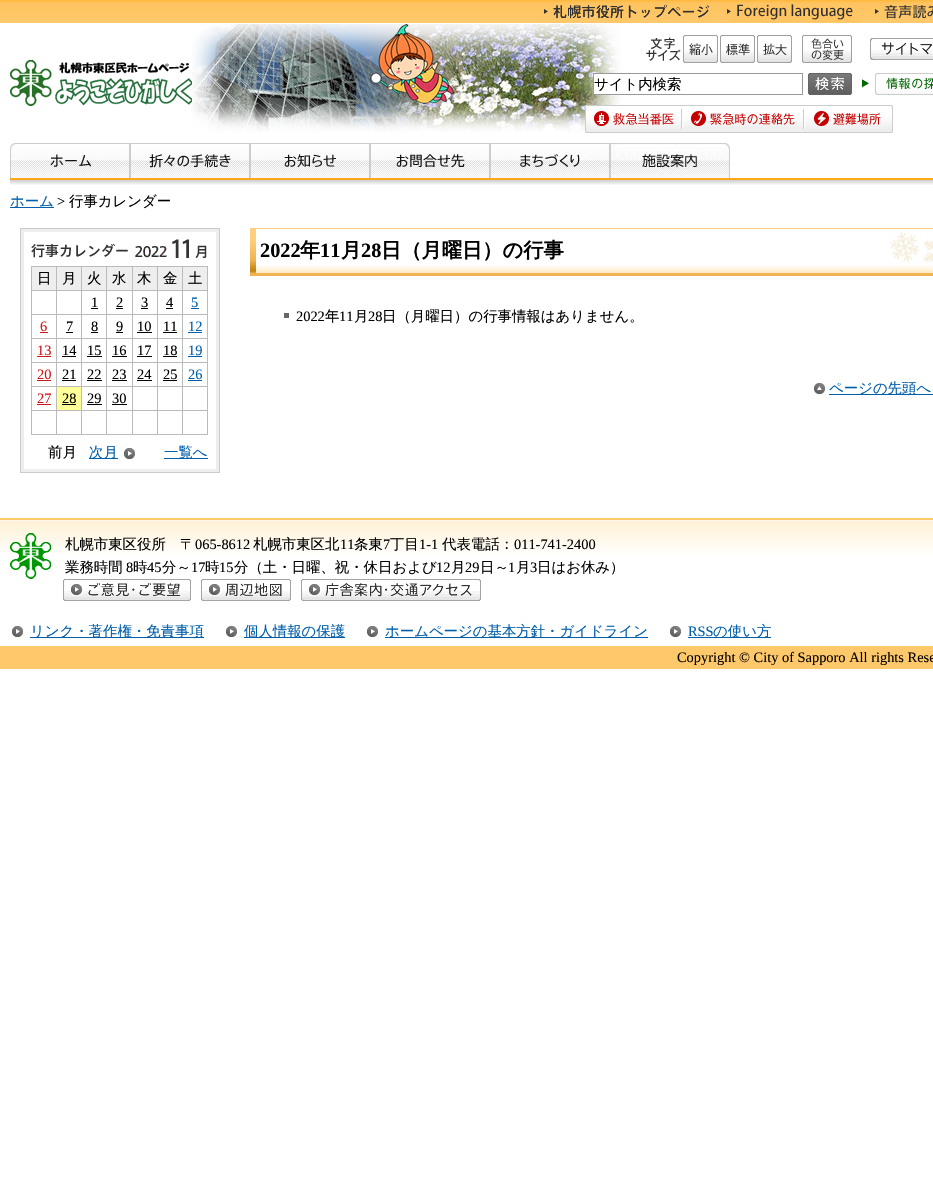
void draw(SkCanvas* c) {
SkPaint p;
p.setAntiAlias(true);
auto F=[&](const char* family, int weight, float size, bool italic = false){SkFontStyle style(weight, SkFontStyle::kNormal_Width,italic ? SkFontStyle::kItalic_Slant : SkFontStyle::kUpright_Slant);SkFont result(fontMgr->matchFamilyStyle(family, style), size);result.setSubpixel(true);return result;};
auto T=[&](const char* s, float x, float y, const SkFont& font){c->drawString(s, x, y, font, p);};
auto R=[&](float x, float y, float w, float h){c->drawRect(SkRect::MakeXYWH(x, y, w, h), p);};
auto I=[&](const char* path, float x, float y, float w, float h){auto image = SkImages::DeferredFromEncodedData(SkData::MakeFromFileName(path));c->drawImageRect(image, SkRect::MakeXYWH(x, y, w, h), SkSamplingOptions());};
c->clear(0xffffffff);
I("1.png",0,0,933,23);
I("2.png",191,24,671,108);
I("3.png",10,60,182,46);
I("4.png",544,4,165,15);
I("5.png",727,3,130,19);
I("6.png",875,5,58,14);
I("7.png",646,37,35,24);
I("8.png",683,35,35,28);
I("9.png",720,35,35,28);
I("10.png",757,35,35,28);
I("11.png",802,35,50,28);
I("12.png",870,38,63,22);
p.setColor(0xffffffff);
R(594,74,28,20);
p.setStroke(true);
p.setStrokeWidth(1);
p.setColor(0xff999999);
c->drawRect(SkRect::MakeXYWH(593.5,73.5,209,21),p);
auto f1 = F("WenQuanYi Zen Hei",500,14.4);
p.setStroke(false);
p.setColor(0xff000000);
T("サイト内検索",594,89,f1);
I("13.png",808,73,44,22);
I("14.png",862,73,71,22);
I("15.png",585,105,97,28);
I("16.png",682,105,122,28);
I("17.png",804,105,89,28);
I("18.png",10,178,923,7);
I("19.png",10,143,120,35);
I("20.png",130,143,120,35);
I("21.png",250,143,120,35);
I("22.png",370,143,120,35);
I("23.png",490,143,120,35);
I("24.png",610,143,120,35);
p.setColor(0xff005eaa);
R(10,207,44,1);
T("ホーム",10,206,f1);
auto f2 = F("Liberation Serif",400,14.4);
p.setColor(0xff000000);
T(">",57,206,f2);
T("行事カレンダー",69,206,f1);
p.setStroke(true);
p.setColor(0xffcccccc);
c->drawRect(SkRect::MakeXYWH(20.5,228.5,199,244),p);
p.setStrokeWidth(3);
p.setColor(0xffeeeeee);
c->drawRect(SkRect::MakeXYWH(22.5,230.5,195,240),p);
I("25.png",31,243,97,15);
I("26.png",135,246,32,12);
I("27.png",172,239,35,19);
p.setStroke(false);
p.setColor(0xffbbbbbb);
R(31,266,177,1);
R(207,266,1,169);
R(31,434,177,1);
R(31,266,1,169);
p.setColor(0xffeeeeee);
R(32,267,24,23);
p.setColor(0xff000000);
T("日",37,283,f1);
p.setColor(0xffeeeeee);
R(57,267,24,23);
p.setColor(0xffbbbbbb);
R(182,290,26,1);
R(182,314,26,1);
R(182,338,26,1);
R(182,362,26,1);
R(182,386,26,1);
R(182,410,26,1);
R(182,410,1,25);
R(157,410,26,1);
R(182,386,1,25);
R(157,386,26,1);
R(182,362,1,25);
R(157,362,26,1);
R(182,338,1,25);
R(157,338,26,1);
R(182,314,1,25);
R(157,314,26,1);
R(182,290,1,25);
R(157,290,26,1);
R(157,410,1,25);
R(132,410,26,1);
R(157,386,1,25);
R(132,386,26,1);
R(157,362,1,25);
R(132,362,26,1);
R(157,338,1,25);
R(132,338,26,1);
R(157,314,1,25);
R(132,314,26,1);
R(157,290,1,25);
R(132,290,26,1);
R(132,410,1,25);
R(106,410,27,1);
R(132,386,1,25);
R(106,386,27,1);
R(132,362,1,25);
R(106,362,27,1);
R(132,338,1,25);
R(106,338,27,1);
R(132,314,1,25);
R(106,314,27,1);
R(132,290,1,25);
R(106,290,27,1);
R(106,410,1,25);
R(81,410,26,1);
R(106,386,1,25);
R(81,386,26,1);
R(106,362,1,25);
R(81,362,26,1);
R(106,338,1,25);
R(81,338,26,1);
R(106,314,1,25);
R(81,314,26,1);
R(106,290,1,25);
R(81,290,26,1);
R(81,410,1,25);
R(56,410,26,1);
R(81,386,1,25);
R(56,386,26,1);
R(81,362,1,25);
R(56,362,26,1);
R(81,338,1,25);
R(56,338,26,1);
R(81,314,1,25);
R(56,314,26,1);
R(81,290,1,25);
R(56,290,26,1);
R(56,410,1,25);
R(31,410,26,1);
R(56,386,1,25);
R(31,386,26,1);
R(56,362,1,25);
R(31,362,26,1);
R(56,338,1,25);
R(31,338,26,1);
R(56,314,1,25);
R(31,314,26,1);
R(56,290,1,25);
R(31,290,26,1);
R(56,266,1,25);
p.setColor(0xff000000);
T("月",62,283,f1);
p.setColor(0xffeeeeee);
R(82,267,24,23);
p.setColor(0xffbbbbbb);
R(81,266,1,25);
p.setColor(0xff000000);
T("火",87,283,f1);
p.setColor(0xffeeeeee);
R(107,267,25,23);
p.setColor(0xffbbbbbb);
R(106,266,1,25);
p.setColor(0xff000000);
T("水",112,283,f1);
p.setColor(0xffeeeeee);
R(133,267,24,23);
p.setColor(0xffbbbbbb);
R(132,266,1,25);
p.setColor(0xff000000);
T("木",137,283,f1);
p.setColor(0xffeeeeee);
R(158,267,24,23);
p.setColor(0xffbbbbbb);
R(157,266,1,25);
p.setColor(0xff000000);
T("金",163,283,f1);
p.setColor(0xffeeeeee);
R(183,267,24,23);
p.setColor(0xffbbbbbb);
R(182,266,1,25);
p.setColor(0xff000000);
T("土",188,283,f1);
T("1",91,307,f2);
R(91,308,7,1);
T("2",116,307,f2);
R(116,308,7,1);
T("3",141,307,f2);
R(141,308,7,1);
T("4",166,307,f2);
R(166,308,7,1);
p.setColor(0xff005eaa);
T("5",191,307,f2);
R(191,308,8,1);
p.setColor(0xffd11818);
T("6",40,331,f2);
R(40,332,8,1);
p.setColor(0xff000000);
T("7",66,331,f2);
R(66,332,7,1);
T("8",91,331,f2);
R(91,332,7,1);
T("9",116,331,f2);
R(116,332,7,1);
T("10",137,331,f2);
R(137,332,15,1);
T("11",163,331,f2);
R(163,332,14,1);
p.setColor(0xff005eaa);
T("12",188,331,f2);
R(188,332,14,1);
p.setColor(0xffd11818);
T("13",37,355,f2);
R(37,356,14,1);
p.setColor(0xff000000);
T("14",62,355,f2);
R(62,356,14,1);
T("15",87,355,f2);
R(87,356,15,1);
T("16",112,355,f2);
R(112,356,15,1);
T("17",137,355,f2);
R(137,356,15,1);
T("18",163,355,f2);
R(163,356,14,1);
p.setColor(0xff005eaa);
T("19",188,355,f2);
R(188,356,14,1);
p.setColor(0xffd11818);
T("20",37,379,f2);
R(37,380,14,1);
p.setColor(0xff000000);
T("21",62,379,f2);
R(62,380,14,1);
T("22",87,379,f2);
R(87,380,15,1);
T("23",112,379,f2);
R(112,380,15,1);
T("24",137,379,f2);
R(137,380,15,1);
T("25",163,379,f2);
R(163,380,14,1);
p.setColor(0xff005eaa);
T("26",188,379,f2);
R(188,380,14,1);
p.setColor(0xffd11818);
T("27",37,403,f2);
R(37,404,14,1);
p.setColor(0xffffff99);
R(57,387,24,23);
p.setColor(0xff000000);
T("28",62,403,f2);
R(62,404,14,1);
T("29",87,403,f2);
R(87,404,15,1);
T("30",112,403,f2);
R(112,404,15,1);
T("前月",48,457,f1);
I("28.png",124,448,11,11);
p.setColor(0xff005eaa);
R(89,458,29,1);
T("次月",89,457,f1);
R(164,458,44,1);
T("一覧へ",164,457,f1);
I("29.png",250,229,683,47);
p.setColor(0xffffcf80);
R(250,228,683,1);
auto f3 = F("Liberation Serif",700,20.25);
p.setColor(0xff000000);
T("2022",260,257,f3);
auto f4 = F("WenQuanYi Zen Hei",700,20.25);
T("年",300,257,f4);
T("11",320,257,f3);
T("月",341,257,f4);
T("28",361,257,f3);
T("日（月曜日）の行事",381,257,f4);
p.setColor(0xff666666);
R(284,313,5,5);
p.setColor(0xff000000);
T("2022",296,321,f2);
T("年",325,321,f1);
T("11",339,321,f2);
T("月",354,321,f1);
T("28",368,321,f2);
T("日（月曜日）の行事情報はありません。",382,321,f1);
I("30.png",814,383,11,11);
p.setColor(0xff005eaa);
R(829,394,104,1);
T("ページの先頭へ",829,393,f1);
I("31.png",0,520,933,34);
p.setColor(0xffffc86a);
R(0,518,933,2);
I("32.png",10,533,42,46);
p.setColor(0xff000000);
T("札幌市東区役所",65,549,f1);
T("〒",180,549,f1);
T("065-8612",195,549,f2);
T("札幌市東区北",253,549,f1);
T("11",340,549,f2);
T("条東",354,549,f1);
T("7",383,549,f2);
T("丁目",390,549,f1);
T("1-1",419,549,f2);
T("代表電話：",442,549,f1);
T("011-741-2400",514,549,f2);
T("業務時間",65,572,f1);
T("8",126,572,f2);
T("時",133,572,f1);
T("45",147,572,f2);
T("分～",162,572,f1);
T("17",191,572,f2);
T("時",205,572,f1);
T("15",219,572,f2);
T("分（土・日曜、祝・休日および",234,572,f1);
T("12",436,572,f2);
T("月",451,572,f1);
T("29",465,572,f2);
T("日～",480,572,f1);
T("1",508,572,f2);
T("月",516,572,f1);
T("3",530,572,f2);
T("日はお休み）",537,572,f1);
I("33.png",63,579,128,22);
I("34.png",201,579,90,22);
I("35.png",301,579,180,22);
I("36.png",12,626,11,11);
p.setColor(0xff005eaa);
R(30,637,174,1);
T("リンク・著作権・免責事項",30,636,f1);
I("36.png",226,626,11,11);
R(244,637,101,1);
T("個人情報の保護",244,636,f1);
I("36.png",367,626,11,11);
R(385,637,263,1);
T("ホームページの基本方針・ガイドライン",385,636,f1);
I("36.png",670,626,11,11);
T("RSS",688,636,f2);
R(688,637,83,1);
T("の使い方",713,636,f1);
p.setColor(0xffffc86a);
R(0,646,933,23);
p.setColor(0xff000000);
T("Copyright © City of Sapporo All rights Rese",677,662,f2);
}
